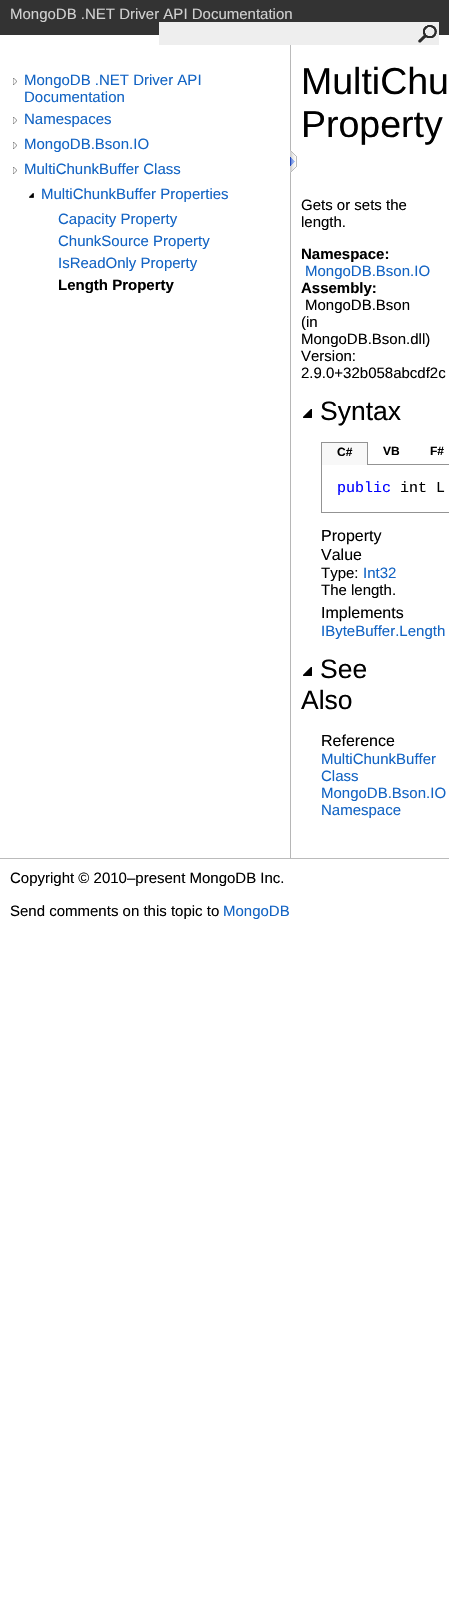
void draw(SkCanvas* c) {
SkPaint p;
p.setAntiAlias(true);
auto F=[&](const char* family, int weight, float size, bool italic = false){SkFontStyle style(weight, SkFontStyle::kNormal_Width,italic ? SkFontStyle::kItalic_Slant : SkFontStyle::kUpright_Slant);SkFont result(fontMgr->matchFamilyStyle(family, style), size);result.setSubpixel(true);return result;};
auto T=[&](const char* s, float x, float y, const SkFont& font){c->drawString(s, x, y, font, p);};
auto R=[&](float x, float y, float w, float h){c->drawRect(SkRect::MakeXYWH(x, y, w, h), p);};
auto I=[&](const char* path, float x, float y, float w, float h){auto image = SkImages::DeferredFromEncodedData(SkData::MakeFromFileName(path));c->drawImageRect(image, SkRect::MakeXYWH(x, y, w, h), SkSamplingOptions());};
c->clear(0xffffffff);
p.setColor(0xff333333);
R(0,0,449,35);
p.setColor(0xffeeeeee);
R(159,22,280,23);
auto f1 = F("Liberation Sans",400,15);
p.setColor(0xffd0d0d0);
T("MongoDB .NET Driver API Documentation",10,19,f1);
I("1.png",418,25,19,18);
p.setColor(0xffb6b6b6);
R(290,60,1,798);
I("2.png",13,78,4,7);
p.setColor(0xff1364c4);
T("MongoDB .NET Driver API",24,85,f1);
T("Documentation",24,102,f1);
I("2.png",13,117,4,7);
T("Namespaces",24,124,f1);
I("2.png",13,142,4,7);
T("MongoDB.Bson.IO",24,149,f1);
I("2.png",13,167,4,7);
T("MultiChunkBuffer Class",24,174,f1);
I("3.png",29,193,5,5);
T("MultiChunkBuffer Properties",41,199,f1);
c->save();
c->clipRect(SkRect::MakeXYWH(58,210,232,17));
T("Capacity Property",58,224,f1);
c->restore();
c->save();
c->clipRect(SkRect::MakeXYWH(58,232,232,17));
T("ChunkSource Property",58,246,f1);
c->restore();
c->save();
c->clipRect(SkRect::MakeXYWH(58,254,232,17));
T("IsReadOnly Property",58,268,f1);
c->restore();
c->save();
c->clipRect(SkRect::MakeXYWH(58,276,232,17));
auto f2 = F("Liberation Sans",700,15);
p.setColor(0xff000000);
T("Length Property",58,290,f2);
c->restore();
I("4.png",290,150,7,23);
p.setColor(0xffbbbbbb);
R(290,45,1,15);
auto f3 = F("Liberation Sans",400,37.5);
p.setColor(0xff000000);
T("MultiChu",301,94,f3);
T("Property",301,137,f3);
T("Gets or sets the",301,210,f1);
T("length.",301,227,f1);
T("Namespace:",301,259,f2);
p.setColor(0xff1364c4);
T("MongoDB.Bson.IO",305,276,f1);
p.setColor(0xff000000);
T("Assembly:",301,293,f2);
T("MongoDB.Bson",305,310,f1);
T("(in",301,327,f1);
T("MongoDB.Bson.dll)",301,344,f1);
T("Version:",301,361,f1);
T("2.9.0+32b058abcdf2c",301,378,f1);
I("5.png",303,409,9,9);
auto f4 = F("Liberation Sans",400,26.5);
T("Syntax",320,420,f4);
p.setStroke(true);
p.setStrokeWidth(1);
p.setColor(0xff939393);
c->drawRect(SkRect::MakeXYWH(321.5,464.5,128,48),p);
p.setStroke(false);
p.setColor(0xfff8f8f8);
R(322,443,45,22);
p.setColor(0xff939393);
R(321,442,47,1);
R(367,442,1,23);
R(321,442,1,23);
auto f5 = F("Liberation Sans",700,12);
p.setColor(0xff000000);
T("C#",337,456,f5);
T("VB",383,455,f5);
T("F#",430,455,f5);
auto f6 = F("Liberation Mono",400,15);
p.setColor(0xff0000ff);
T("public",337,492,f6);
p.setColor(0xff000000);
T("int L",400,492,f6);
auto f7 = F("Liberation Sans",400,16);
T("Property",321,541,f7);
T("Value",321,560,f7);
T("Type:",321,578,f1);
p.setColor(0xff1364c4);
T("Int32",363,578,f1);
p.setColor(0xff000000);
T("The length.",321,595,f1);
T("Implements",321,618,f7);
p.setColor(0xff1364c4);
T("IByteBuffer.Length",321,636,f1);
I("5.png",303,667,9,9);
p.setColor(0xff000000);
T("See",320,678,f4);
T("Also",301,709,f4);
T("Reference",321,746,f7);
p.setColor(0xff1364c4);
T("MultiChunkBuffer",321,764,f1);
T("Class",321,781,f1);
T("MongoDB.Bson.IO",321,798,f1);
T("Namespace",321,815,f1);
p.setColor(0xffbbbbbb);
R(0,858,449,1);
p.setColor(0xff000000);
T("Copyright © 2010–present MongoDB Inc.",10,883,f1);
T("Send comments on this topic to",10,916,f1);
p.setColor(0xff1364c4);
T("MongoDB",223,916,f1);
}
